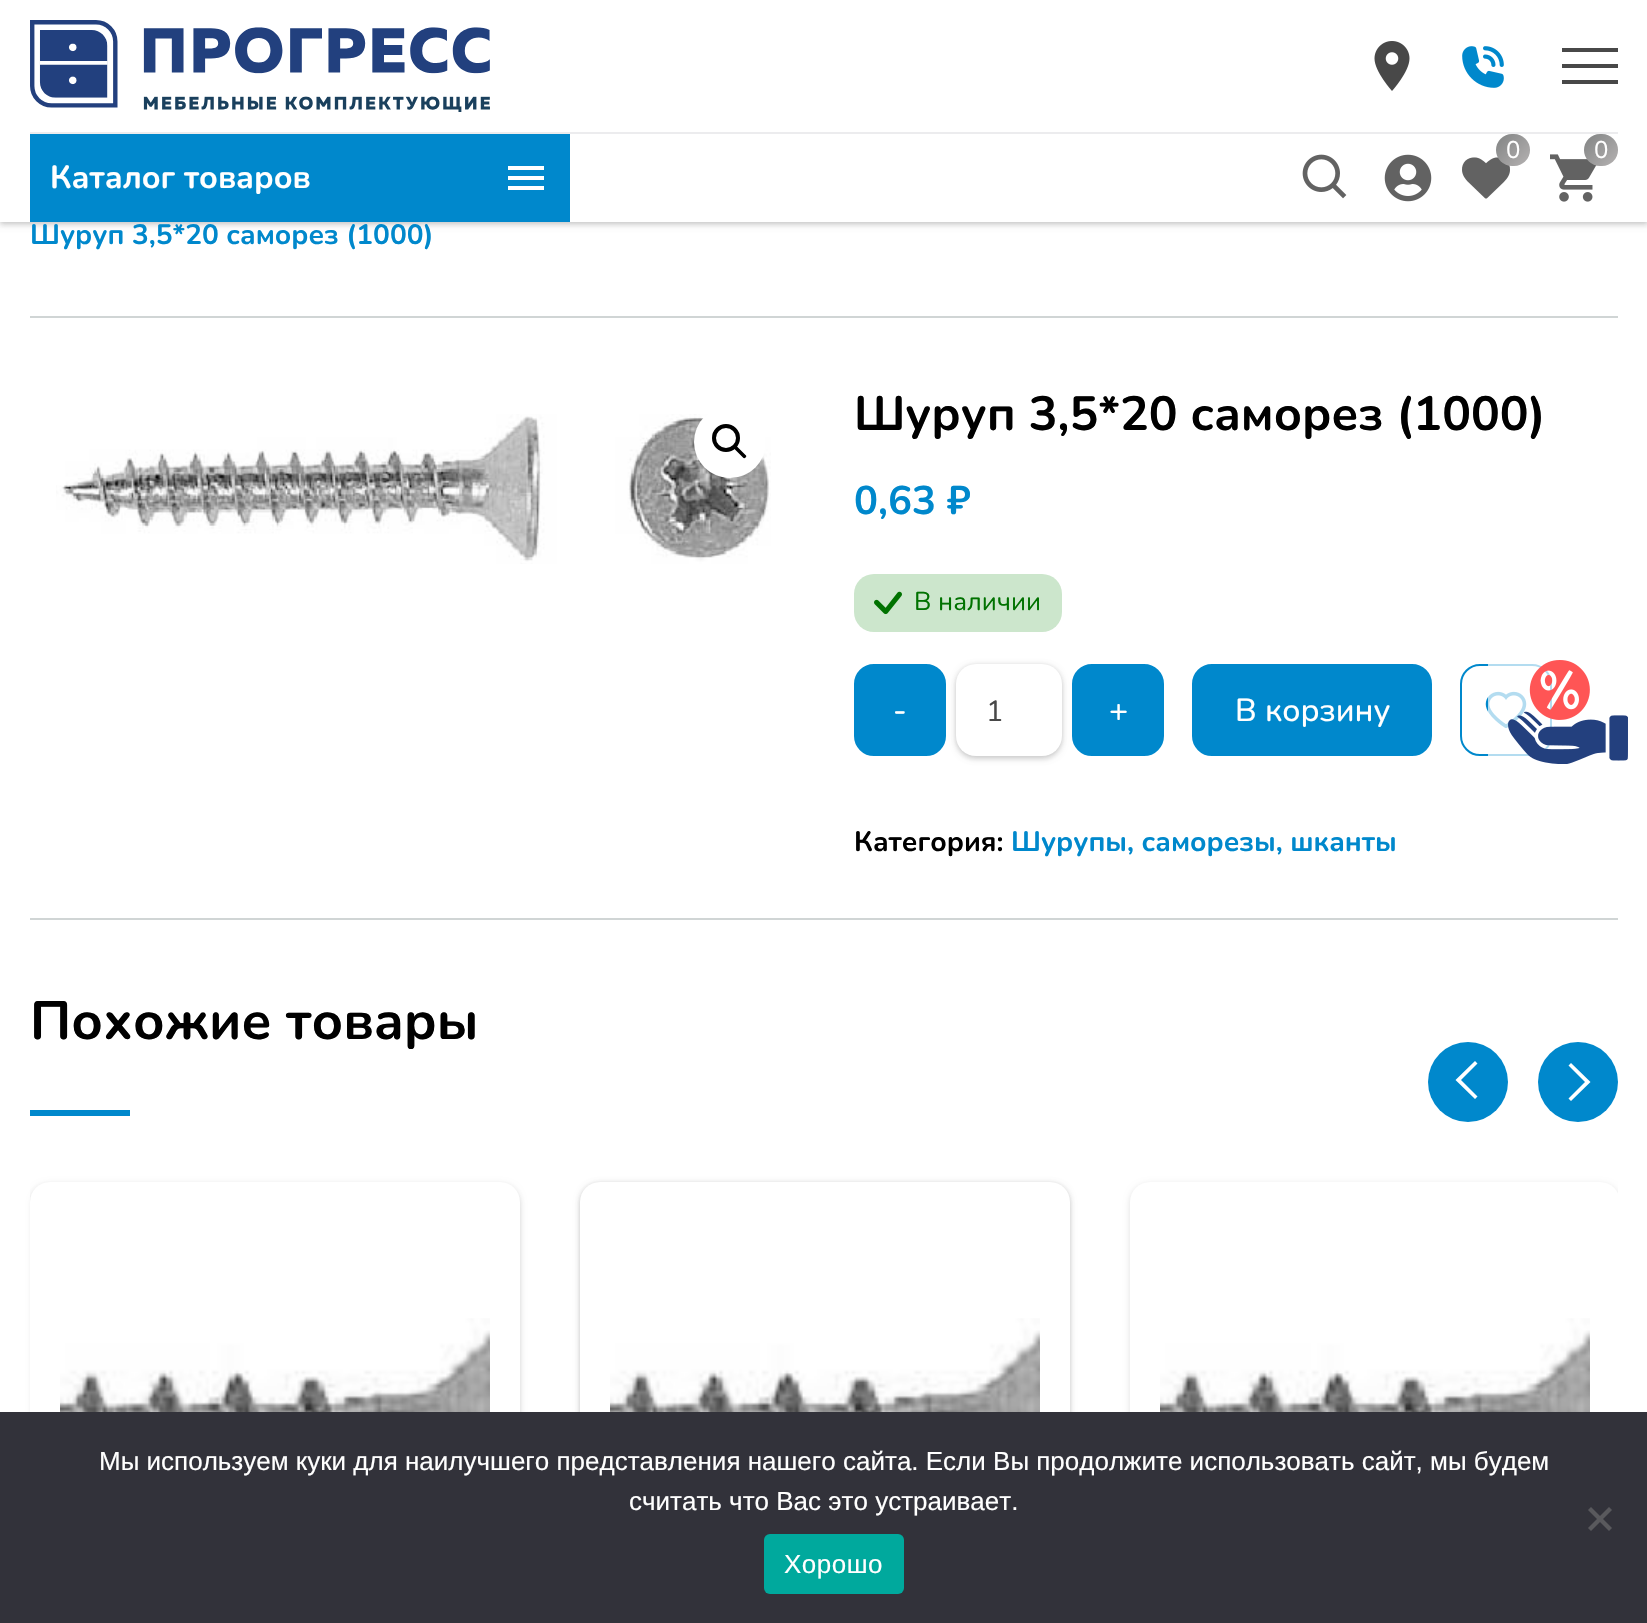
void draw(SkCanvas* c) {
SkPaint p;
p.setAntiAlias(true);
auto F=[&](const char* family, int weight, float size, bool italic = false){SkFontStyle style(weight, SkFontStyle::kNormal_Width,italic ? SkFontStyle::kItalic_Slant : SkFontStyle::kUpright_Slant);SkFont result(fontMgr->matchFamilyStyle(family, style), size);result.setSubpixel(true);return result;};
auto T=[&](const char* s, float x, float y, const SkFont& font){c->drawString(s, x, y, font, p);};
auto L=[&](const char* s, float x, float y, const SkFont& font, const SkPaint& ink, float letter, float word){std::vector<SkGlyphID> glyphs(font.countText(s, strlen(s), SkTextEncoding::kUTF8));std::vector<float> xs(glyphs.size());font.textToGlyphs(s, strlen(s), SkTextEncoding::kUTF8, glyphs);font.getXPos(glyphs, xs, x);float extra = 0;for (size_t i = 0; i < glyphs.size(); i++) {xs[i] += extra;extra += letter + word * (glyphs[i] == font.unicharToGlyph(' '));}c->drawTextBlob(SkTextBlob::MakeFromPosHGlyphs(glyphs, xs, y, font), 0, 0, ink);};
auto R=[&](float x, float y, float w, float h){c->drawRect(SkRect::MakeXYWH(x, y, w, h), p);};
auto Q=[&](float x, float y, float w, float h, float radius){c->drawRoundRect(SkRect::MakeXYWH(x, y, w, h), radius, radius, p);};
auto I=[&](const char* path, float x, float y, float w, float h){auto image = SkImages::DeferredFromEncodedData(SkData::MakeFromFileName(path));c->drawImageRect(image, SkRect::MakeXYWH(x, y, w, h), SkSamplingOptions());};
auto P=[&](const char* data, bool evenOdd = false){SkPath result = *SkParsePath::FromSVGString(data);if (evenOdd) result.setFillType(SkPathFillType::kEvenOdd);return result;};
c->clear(0xffffffff);
p.setColor(0x12000000);
p.setMaskFilter(SkMaskFilter::MakeBlur(kNormal_SkBlurStyle, 2));
c->drawRect(SkRect::MakeXYWH(0,0,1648,222),p);
p.setMaskFilter(nullptr);
p.setColor(0x0f000000);
p.setMaskFilter(SkMaskFilter::MakeBlur(kNormal_SkBlurStyle, 2));
c->drawRect(SkRect::MakeXYWH(0,4,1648,222),p);
p.setMaskFilter(nullptr);
p.setColor(0x1f000000);
p.setMaskFilter(SkMaskFilter::MakeBlur(kNormal_SkBlurStyle, 3));
c->drawRect(SkRect::MakeXYWH(0,2,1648,222),p);
p.setMaskFilter(nullptr);
p.setColor(0xffffffff);
R(0,0,1647,222);
I("1.png",30,20,460,92);
I("2.png",1374,41,36,50);
I("3.png",1462,46,42,42);
p.setColor(0xff484848);
R(1562,48,56,4);
R(1562,64,56,4);
R(1562,80,56,4);
p.setColor(0xffececee);
R(30,132,1588,2);
I("4.png",1462,157,48,42);
{
const SkColor colors[] = {0xff818383,0xffb5b2b2,0xffd0d5d5,0xffc9c9c9,0xfff8f8f8};
const float stops[] = {0,1,1,1,1};
const SkPoint ends[] = {{1496,134}, {1530,166}};
p.setShader(SkGradientShader::MakeLinear(ends, colors, stops, 5, SkTileMode::kClamp));
p.setAlpha(255);
}
Q(1496,134,34,32,16);
auto f1 = F("Nunito",400,24);
p.setShader(nullptr);
p.setColor(0xffffffff);
T("0",1506,158,f1);
I("5.png",1550,154,47,48);
{
const SkColor colors[] = {0xff818383,0xffb5b2b2,0xffd0d5d5,0xffc9c9c9,0xfff8f8f8};
const float stops[] = {0,1,1,1,1};
const SkPoint ends[] = {{1584,134}, {1618,166}};
p.setShader(SkGradientShader::MakeLinear(ends, colors, stops, 5, SkTileMode::kClamp));
p.setAlpha(255);
}
Q(1584,134,34,32,16);
p.setShader(nullptr);
p.setColor(0xffffffff);
T("0",1594,158,f1);
I("6.png",1384,154,48,48);
p.setColor(0xff0088cc);
R(30,134,540,88);
auto f2 = F("Nunito",700,32);
p.setColor(0xffffffff);
T("Каталог товаров",50,188,f2);
c->drawPath(P("M544 166v4h-36v-4zm-36 24h36v-4h-36zm0-10h36v-4h-36z"),p);
I("7.png",1302,154,45,45);
auto f3 = F("Nunito",700,28);
p.setColor(0xff0088cc);
T("Шуруп 3,5*20 саморез (1000)",30,244,f3);
p.setColor(0xffd0d5d5);
R(30,316,1588,2);
I("8.png",56,414,715,150);
p.setColor(0xffffffff);
c->drawCircle(730,442,36,p);
p.setStroke(true);
p.setStrokeWidth(4);
p.setColor(0xff000000);
c->drawCircle(726,438,12,p);
p.setStroke(false);
c->drawPath(P("M734.5 446.5c.5-1 2-1 2.5 0l8.5 8.5c1 .5 1 2 0 2.5c-.5 1-2 1-2.5 0l-8.5-8.5c-1-.5-1-2 0-2.5z"),p);
auto f4 = F("Nunito",700,48);
T("Шуруп 3,5*20 саморез (1000)",854,430,f4);
auto f5 = F("Nunito",700,40);
p.setColor(0xff0088cc);
T("0,63 ₽",854,514,f5);
p.setColor(0xffcce6cc);
Q(854,574,208,58,20);
I("9.png",874,591,28,24);
auto f6 = F("Nunito",400,25.75);
p.setColor(0xff007200);
T("В наличии",914,610,f6);
p.setColor(0xff0088cc);
c->drawRoundRect(SkRect::MakeXYWH(855,665,90,90),19,19,p);
p.setStroke(true);
p.setStrokeWidth(2);
c->drawRoundRect(SkRect::MakeXYWH(855,665,90,90),19,19,p);
auto f7 = F("Nunito",500,32);
p.setStroke(false);
p.setColor(0xffffffff);
T("-",893,721,f7);
p.setColor(0x12000000);
p.setMaskFilter(SkMaskFilter::MakeBlur(kNormal_SkBlurStyle, 2));
c->drawRoundRect(SkRect::MakeXYWH(956,664,106,92),20,20,p);
p.setMaskFilter(nullptr);
p.setColor(0x0f000000);
p.setMaskFilter(SkMaskFilter::MakeBlur(kNormal_SkBlurStyle, 2));
c->drawRoundRect(SkRect::MakeXYWH(956,668,106,92),20,20,p);
p.setMaskFilter(nullptr);
p.setColor(0x1f000000);
p.setMaskFilter(SkMaskFilter::MakeBlur(kNormal_SkBlurStyle, 3));
c->drawRoundRect(SkRect::MakeXYWH(956,666,106,92),20,20,p);
p.setMaskFilter(nullptr);
p.setColor(0xffffffff);
Q(956,664,106,92,20);
auto f8 = F("Nunito",400,29);
p.setColor(0xff484848);
T("1",986,721,f8);
p.setColor(0xff0088cc);
c->drawRoundRect(SkRect::MakeXYWH(1073,665,90,90),19,19,p);
p.setStroke(true);
c->drawRoundRect(SkRect::MakeXYWH(1073,665,90,90),19,19,p);
p.setStroke(false);
p.setColor(0xffffffff);
T("+",1109,721,f7);
p.setColor(0xff0088cc);
c->drawRoundRect(SkRect::MakeXYWH(1193,665,238,90),19,19,p);
p.setStroke(true);
c->drawRoundRect(SkRect::MakeXYWH(1193,665,238,90),19,19,p);
p.setStroke(false);
p.setColor(0xffffffff);
T("В корзину",1235,721,f7);
p.setStroke(true);
p.setColor(0xff0088cc);
c->drawRoundRect(SkRect::MakeXYWH(1461,665,90,90),19,19,p);
I("10.png",1485,691,42,38);
p.setStroke(false);
p.setColor(0xff000000);
T("Категория:",854,851,f3);
p.setColor(0xff0088cc);
T("Шурупы, саморезы, шканты",1011,851,f3);
p.setColor(0xffd0d5d5);
R(30,918,1588,2);
auto f9 = F("Nunito",700,53.75);
p.setColor(0xff000000);
T("Похожие товары",30,1039,f9);
p.setColor(0xff0088cc);
R(30,1110,100,6);
c->drawCircle(1468,1082,40,p);
p.setColor(0xffffffff);
c->drawPath(P("M1477.5 1063.5l-16.5 16.5l16.5 16.5l-2.5 2.5l-19.5-19l19.5-19z",true),p);
p.setColor(0xff0088cc);
c->drawCircle(1578,1082,40,p);
p.setColor(0xffffffff);
c->drawPath(P("M1568.5 1098.5l16.5-16.5l-16.5-16.5l2.5-2.5l19.5 19l-19.5 19z",true),p);
p.setColor(0x0f000000);
p.setMaskFilter(SkMaskFilter::MakeBlur(kNormal_SkBlurStyle, 2));
c->drawRoundRect(SkRect::MakeXYWH(30,1186,490,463),20,20,p);
p.setMaskFilter(nullptr);
c->save();
c->clipRect(SkRect::MakeXYWH(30,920,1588,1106));
p.setColor(0x1f000000);
p.setMaskFilter(SkMaskFilter::MakeBlur(kNormal_SkBlurStyle, 3));
c->drawRoundRect(SkRect::MakeXYWH(30,1184,490,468),20,20,p);
p.setMaskFilter(nullptr);
c->restore();
p.setColor(0xffffffff);
Q(30,1182,490,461,20);
I("11.png",60,1318,430,94);
p.setColor(0x12000000);
p.setMaskFilter(SkMaskFilter::MakeBlur(kNormal_SkBlurStyle, 2));
c->drawRoundRect(SkRect::MakeXYWH(580,1182,490,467),20,20,p);
p.setMaskFilter(nullptr);
p.setColor(0x0f000000);
p.setMaskFilter(SkMaskFilter::MakeBlur(kNormal_SkBlurStyle, 2));
c->drawRoundRect(SkRect::MakeXYWH(580,1186,490,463),20,20,p);
p.setMaskFilter(nullptr);
p.setColor(0x1f000000);
p.setMaskFilter(SkMaskFilter::MakeBlur(kNormal_SkBlurStyle, 3));
c->drawRoundRect(SkRect::MakeXYWH(580,1184,490,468),20,20,p);
p.setMaskFilter(nullptr);
p.setColor(0xffffffff);
Q(580,1182,490,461,20);
I("12.png",610,1318,430,94);
c->save();
c->clipRect(SkRect::MakeXYWH(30,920,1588,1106));
p.setColor(0x1f000000);
p.setMaskFilter(SkMaskFilter::MakeBlur(kNormal_SkBlurStyle, 3));
c->drawRoundRect(SkRect::MakeXYWH(1130,1184,490,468),20,20,p);
p.setMaskFilter(nullptr);
c->restore();
c->save();
c->clipRect(SkRect::MakeXYWH(30,920,1588,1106));
p.setColor(0xffffffff);
Q(1130,1182,490,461,20);
c->restore();
I("13.png",1160,1318,430,94);
p.setColor(0xb3ffffff);
c->drawPath(P("M1508 632h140v160h-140c-11 0-20-9-20-20v-120c0-11 9-20 20-20z"),p);
I("14.png",1508,660,120,104);
p.setColor(0xff32323a);
R(0,1412,1647,211);
auto f10 = F("Liberation Sans",400,26);
p.setColor(0xffffffff);
T("Мы используем куки для наилучшего представления нашего сайта. Если Вы продолжите использовать сайт, мы будем",99,1470,f10);
T("считать что Вас это устраивает.",629,1510,f10);
p.setColor(0xff59595d);
c->drawPath(P("M1609 1507l3 3l-21 21l-3-3z"),p);
c->drawPath(P("M1588 1510l3-3l21 21l-3 3z"),p);
p.setColor(0xff00a99d);
Q(764,1534,140,60,6);
p.setColor(0xffffffff);
L("Хорошо",784,1573,f10,p,.5,0);
}
